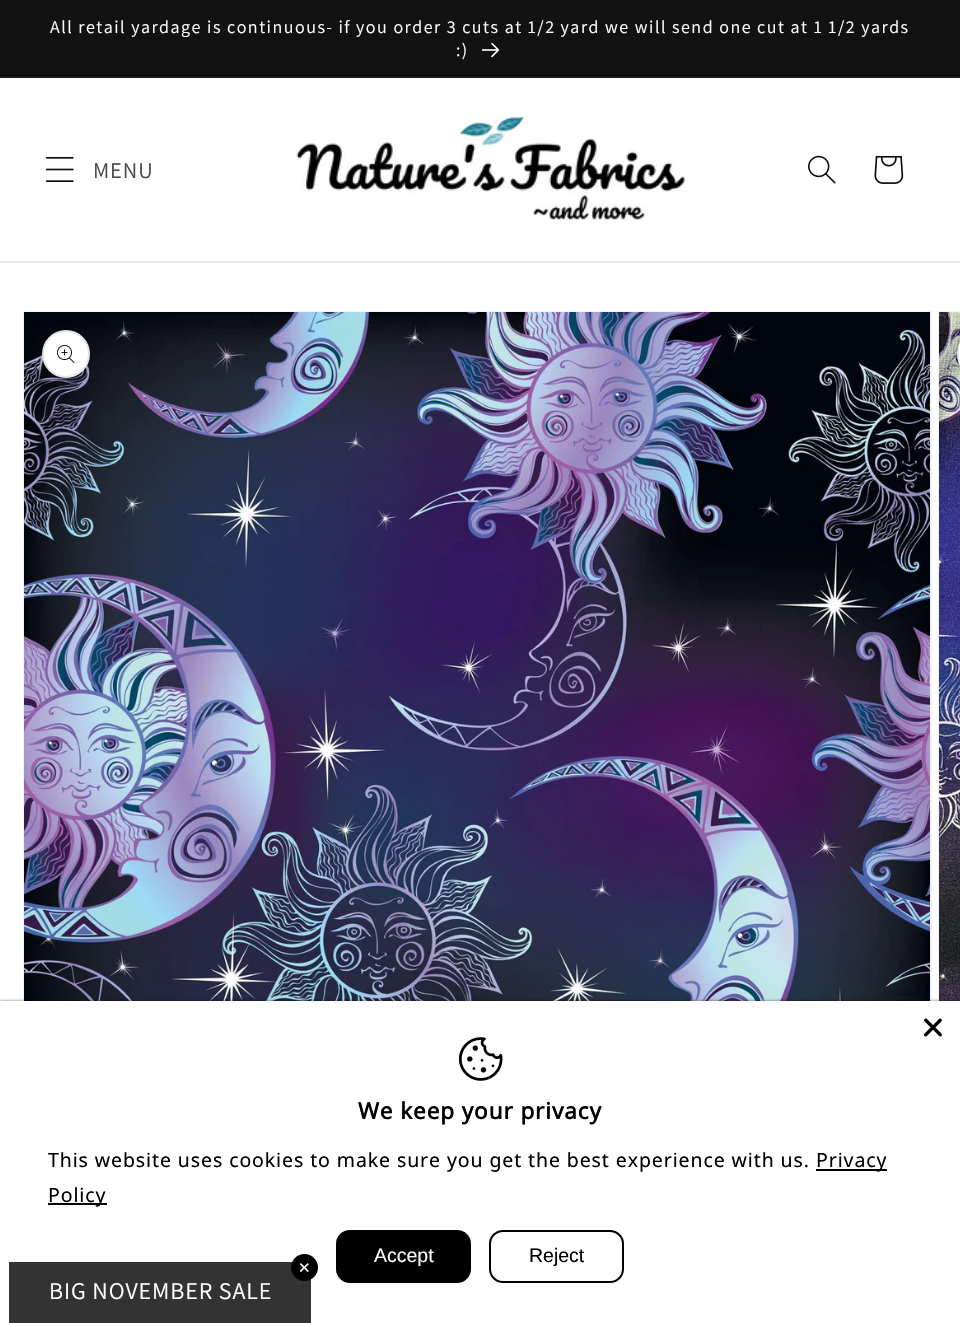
void draw(SkCanvas* c) {
SkPaint p;
p.setAntiAlias(true);
auto F=[&](const char* family, int weight, float size, bool italic = false){SkFontStyle style(weight, SkFontStyle::kNormal_Width,italic ? SkFontStyle::kItalic_Slant : SkFontStyle::kUpright_Slant);SkFont result(fontMgr->matchFamilyStyle(family, style), size);result.setSubpixel(true);return result;};
auto T=[&](const char* s, float x, float y, const SkFont& font){c->drawString(s, x, y, font, p);};
auto L=[&](const char* s, float x, float y, const SkFont& font, const SkPaint& ink, float letter, float word){std::vector<SkGlyphID> glyphs(font.countText(s, strlen(s), SkTextEncoding::kUTF8));std::vector<float> xs(glyphs.size());font.textToGlyphs(s, strlen(s), SkTextEncoding::kUTF8, glyphs);font.getXPos(glyphs, xs, x);float extra = 0;for (size_t i = 0; i < glyphs.size(); i++) {xs[i] += extra;extra += letter + word * (glyphs[i] == font.unicharToGlyph(' '));}c->drawTextBlob(SkTextBlob::MakeFromPosHGlyphs(glyphs, xs, y, font), 0, 0, ink);};
auto R=[&](float x, float y, float w, float h){c->drawRect(SkRect::MakeXYWH(x, y, w, h), p);};
auto Q=[&](float x, float y, float w, float h, float radius){c->drawRoundRect(SkRect::MakeXYWH(x, y, w, h), radius, radius, p);};
auto I=[&](const char* path, float x, float y, float w, float h){auto image = SkImages::DeferredFromEncodedData(SkData::MakeFromFileName(path));c->drawImageRect(image, SkRect::MakeXYWH(x, y, w, h), SkSamplingOptions());};
auto P=[&](const char* data, bool evenOdd = false){SkPath result = *SkParsePath::FromSVGString(data);if (evenOdd) result.setFillType(SkPathFillType::kEvenOdd);return result;};
c->clear(0xffffffff);
p.setColor(0xff121212);
R(0,0,960,77);
p.setColor(0xff252525);
R(0,77,960,1);
auto f1 = F("Assistant",400,18);
p.setColor(0xffffffff);
L("All retail yardage is continuous- if you order 3 cuts at 1/2 yard we will send one cut at 1 1/2 yards",50,33,f1,p,1.5,0);
L(":)",456,56,f1,p,1.5,0);
I("1.png",482,42,18,16);
p.setColor(0xffebebeb);
R(0,261,960,2);
I("2.png",45,157,29,25);
auto f2 = F("Assistant",400,22.5);
p.setColor(0xff484848);
L("MENU",93,178,f2,p,.9,0);
I("3.png",296,115,391,105);
I("4.png",808,155,28,29);
I("5.png",874,156,30,28);
p.setStroke(true);
p.setStrokeWidth(2);
p.setColor(0xfff3f3f3);
c->drawRect(SkRect::MakeXYWH(24,312,907,907),p);
I("6.png",24,312,906,689);
p.setStroke(false);
p.setColor(0xffffffff);
c->drawCircle(66,354,24,p);
p.setStroke(true);
p.setColor(0x1a0b0b0b);
c->drawCircle(66,354,23,p);
I("7.png",57,345,18,18);
p.setColor(0xfff3f3f3);
c->drawRect(SkRect::MakeXYWH(939,312,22,907),p);
I("8.png",939,312,21,689);
p.setStroke(false);
p.setColor(0xffffffff);
c->drawPath(P("M981 330h-21v48h21c-13.5 0-24-10.5-24-24c0-13.5 10.5-24 24-24z"),p);
p.setStroke(true);
p.setColor(0x1a0b0b0b);
c->drawRoundRect(SkRect::MakeXYWH(958,331,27,46),23,23,p);
p.setStroke(false);
p.setColor(0x80000000);
p.setMaskFilter(SkMaskFilter::MakeBlur(kNormal_SkBlurStyle, 1.5));
c->drawRect(SkRect::MakeXYWH(0,1001,960,322),p);
p.setMaskFilter(nullptr);
p.setColor(0xffffffff);
R(0,1001,960,322);
I("9.png",924,1018,18,19);
I("10.png",458,1037,45,44);
auto f3 = F("Noto Sans",700,22.5);
p.setColor(0xff000000);
L("We keep your privacy",358,1119,f3,p,.9,0);
auto f4 = F("Noto Sans",400,19.5);
L("This website uses cookies to make sure you get the best experience with us.",48,1167,f4,p,.9,0);
R(816,1169,71,2);
L("Privacy",816,1167,f4,p,.9,0);
R(48,1203,59,2);
L("Policy",48,1202,f4,p,.9,0);
Q(336,1230,135,53,14);
auto f5 = F("Liberation Sans",400,19.5);
p.setColor(0xfff8f8f8);
T("Accept",374,1262,f5);
p.setStroke(true);
p.setColor(0xff000000);
c->drawRoundRect(SkRect::MakeXYWH(490,1231,133,51),13,13,p);
p.setStroke(false);
T("Reject",529,1262,f5);
p.setColor(0xff333333);
R(9,1262,302,61);
p.setColor(0xff000000);
c->drawCircle(304.5,1267.5,13.5,p);
auto f6 = F("DejaVu Sans",400,15);
p.setColor(0xffffffff);
T("✕",298,1273,f6);
auto f7 = F("Assistant",400,24);
L("BIG NOVEMBER SALE",49,1299,f7,p,.9,0);
}
